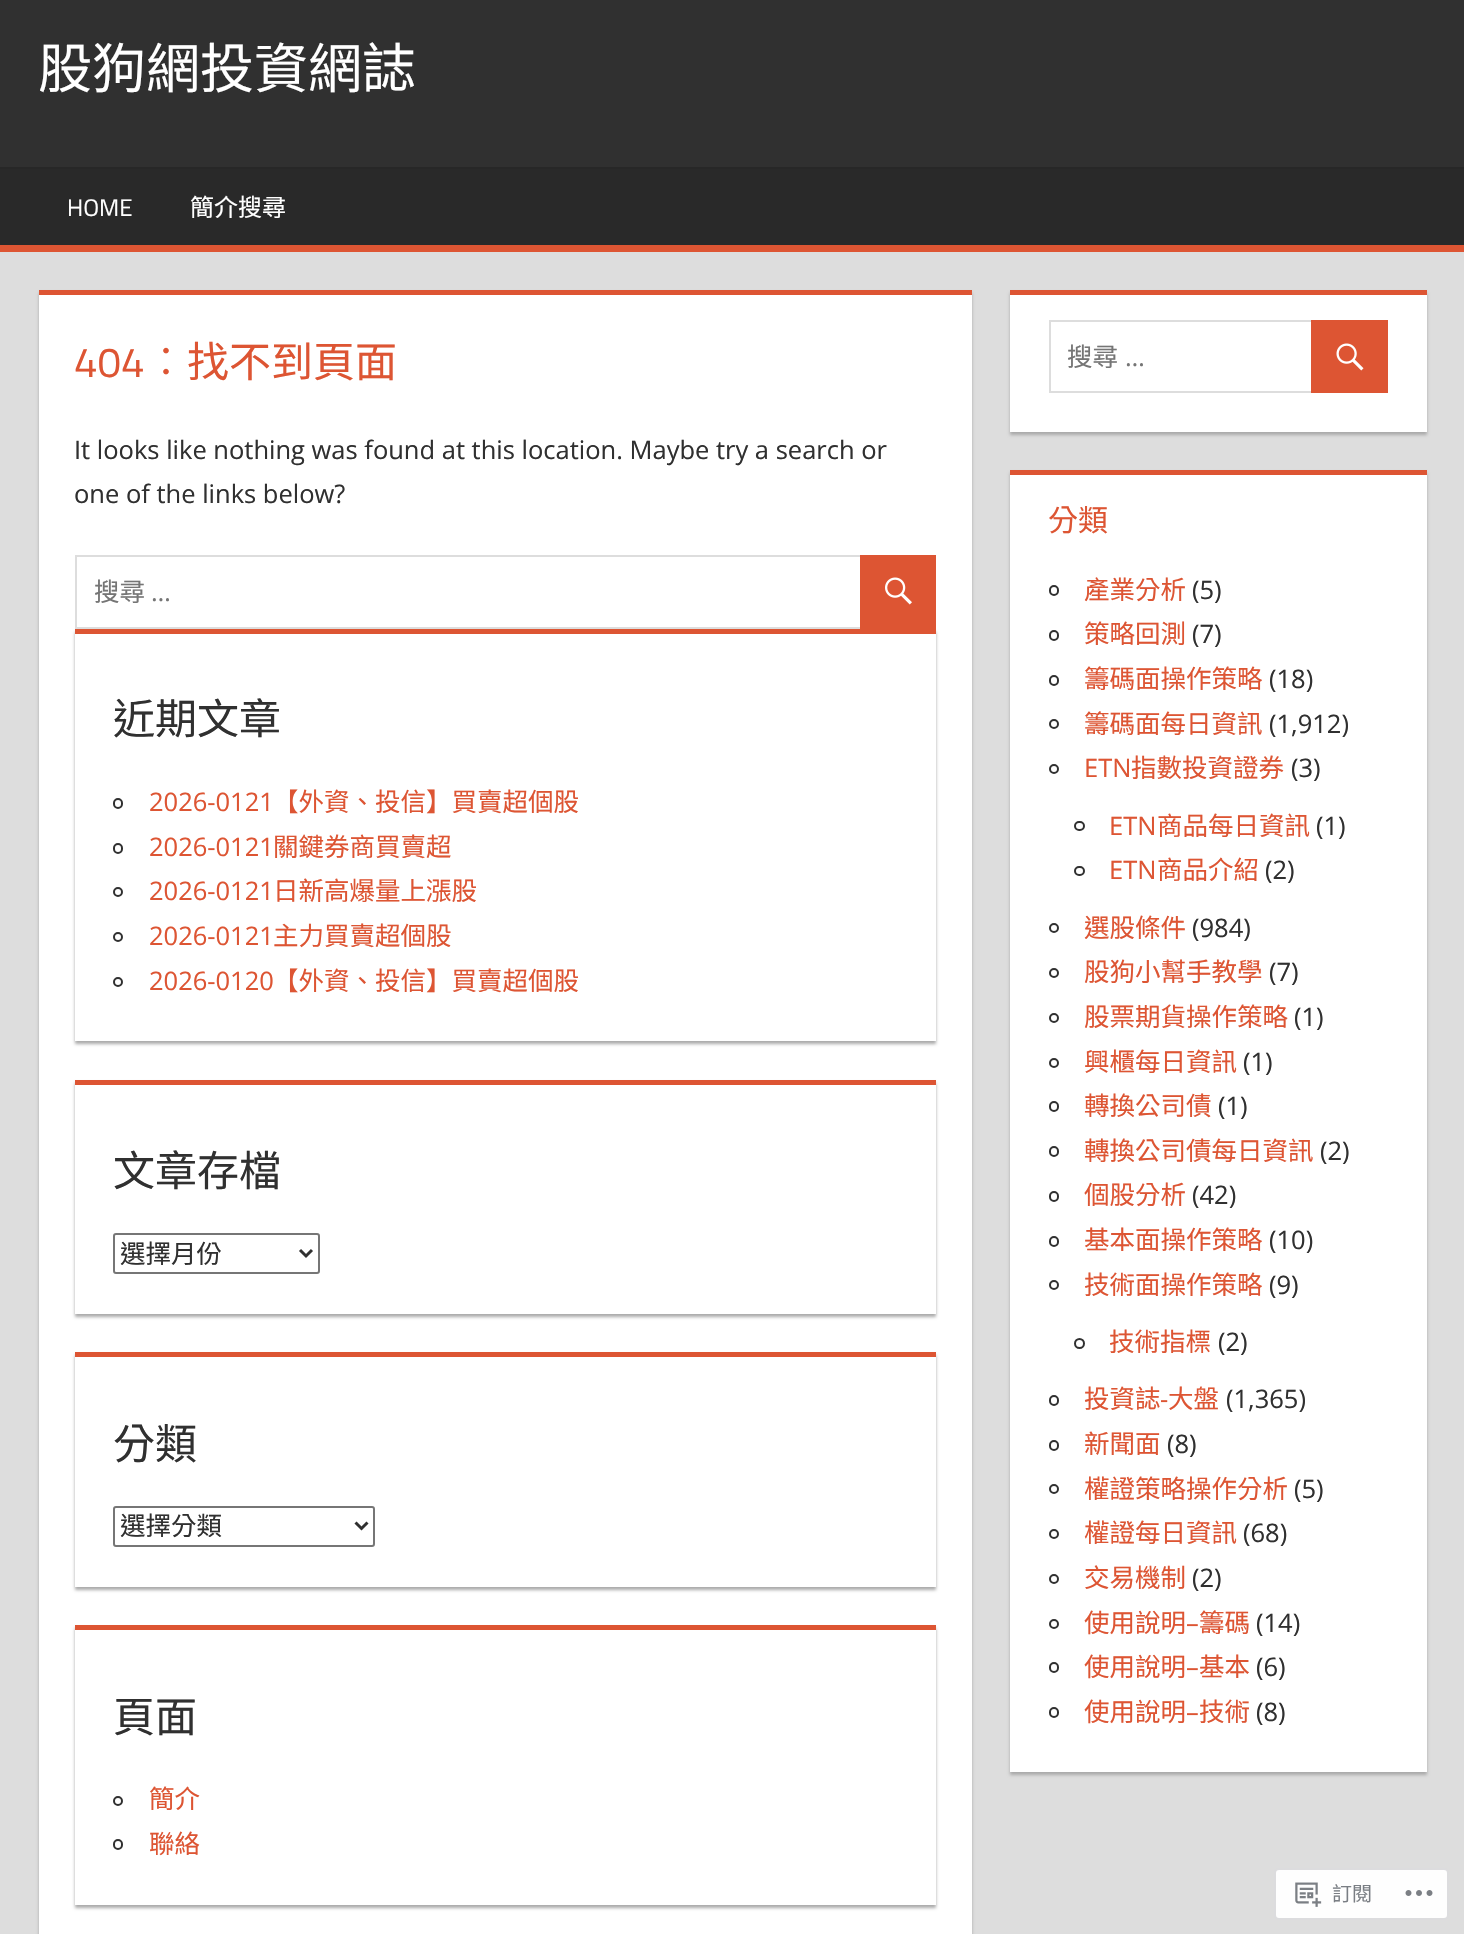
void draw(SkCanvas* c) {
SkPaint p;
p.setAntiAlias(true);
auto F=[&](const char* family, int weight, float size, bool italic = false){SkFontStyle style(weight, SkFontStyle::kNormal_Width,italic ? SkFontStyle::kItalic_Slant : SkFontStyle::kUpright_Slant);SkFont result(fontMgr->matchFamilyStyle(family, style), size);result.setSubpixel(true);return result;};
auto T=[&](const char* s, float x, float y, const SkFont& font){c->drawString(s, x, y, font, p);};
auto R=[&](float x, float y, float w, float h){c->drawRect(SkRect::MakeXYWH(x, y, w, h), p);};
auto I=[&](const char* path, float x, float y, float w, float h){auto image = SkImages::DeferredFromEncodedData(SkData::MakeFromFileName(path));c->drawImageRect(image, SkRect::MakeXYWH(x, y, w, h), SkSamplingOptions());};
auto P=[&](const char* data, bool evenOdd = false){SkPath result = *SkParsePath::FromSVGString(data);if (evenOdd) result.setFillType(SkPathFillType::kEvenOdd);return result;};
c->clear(0xffdddddd);
p.setColor(0xff303030);
R(0,0,1464,167);
auto f1 = F("Noto Sans CJK TC",400,54);
p.setColor(0xffffffff);
T("股狗網投資網誌",38,88,f1);
p.setColor(0xff292929);
R(0,169,1464,76);
p.setColor(0xff272727);
R(0,167,1464,2);
p.setColor(0xffdd5533);
R(0,245,1464,7);
auto f2 = F("Titillium Web",400,24);
p.setColor(0xffffffff);
T("HOME",67,216,f2);
auto f3 = F("Noto Sans CJK TC",400,24);
T("簡介搜尋",190,216,f3);
p.setColor(0xffaaaaaa);
p.setMaskFilter(SkMaskFilter::MakeBlur(kNormal_SkBlurStyle, 1.5));
c->drawRect(SkRect::MakeXYWH(39,293,933,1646),p);
p.setMaskFilter(nullptr);
p.setColor(0xffffffff);
R(39,295,933,1639);
p.setColor(0xffdd5533);
R(39,290,933,5);
auto f4 = F("Titillium Web",400,42);
T("404",74,377,f4);
auto f5 = F("Noto Sans CJK TC",400,42);
T("︰找不到頁面",145,377,f5);
auto f6 = F("Open Sans",400,25.5);
p.setColor(0xff303030);
T("It looks like nothing was found at this location. Maybe try a search or",74,459,f6);
T("one of the links below?",74,503,f6);
c->save();
c->clipPath(P("M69 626h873v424h-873zm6 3h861v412h-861z",true),true);
p.setColor(0xffaaaaaa);
p.setMaskFilter(SkMaskFilter::MakeBlur(kNormal_SkBlurStyle, 1.5));
c->drawRect(SkRect::MakeXYWH(75,632,861,412),p);
p.setMaskFilter(nullptr);
c->restore();
p.setStroke(true);
p.setStrokeWidth(2);
p.setColor(0xffdddddd);
c->drawRect(SkRect::MakeXYWH(76,556,859,72),p);
auto f7 = F("Noto Sans CJK TC",400,25.5);
p.setStroke(false);
p.setColor(0xff757575);
T("搜尋",94,601,f7);
T("…",151,601,f6);
p.setColor(0xffdd5533);
R(860,555,76,74);
I("1.png",885,577,27,28);
R(75,629,861,5);
p.setColor(0xff303030);
T("近期文章",113,734,f5);
p.setStroke(true);
c->drawRoundRect(SkRect::MakeXYWH(114,799,8,9),4,4,p);
p.setStroke(false);
p.setColor(0xffdd5533);
T("2026-0121",149,811,f6);
T("【外資、投信】買賣超個股",273,811,f7);
p.setStroke(true);
p.setColor(0xff303030);
c->drawRoundRect(SkRect::MakeXYWH(114,844,8,9),4,4,p);
p.setStroke(false);
p.setColor(0xffdd5533);
T("2026-0121",149,856,f6);
T("關鍵券商買賣超",273,856,f7);
p.setStroke(true);
p.setColor(0xff303030);
c->drawCircle(118,892,4,p);
p.setStroke(false);
p.setColor(0xffdd5533);
T("2026-0121",149,900,f6);
T("日新高爆量上漲股",273,900,f7);
p.setStroke(true);
p.setColor(0xff303030);
c->drawCircle(118,937,4,p);
p.setStroke(false);
p.setColor(0xffdd5533);
T("2026-0121",149,945,f6);
T("主力買賣超個股",273,945,f7);
p.setStroke(true);
p.setColor(0xff303030);
c->drawCircle(118,982,4,p);
p.setStroke(false);
p.setColor(0xffdd5533);
T("2026-0120",149,990,f6);
T("【外資、投信】買賣超個股",273,990,f7);
c->save();
c->clipPath(P("M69 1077h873v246h-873zm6 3h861v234h-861z",true),true);
p.setColor(0xffaaaaaa);
p.setMaskFilter(SkMaskFilter::MakeBlur(kNormal_SkBlurStyle, 1.5));
c->drawRect(SkRect::MakeXYWH(75,1083,861,234),p);
p.setMaskFilter(nullptr);
c->restore();
p.setColor(0xffdd5533);
R(75,1080,861,5);
p.setColor(0xff303030);
T("文章存檔",113,1186,f5);
p.setStroke(true);
p.setColor(0xff767676);
c->drawRoundRect(SkRect::MakeXYWH(114,1234,205,39),2,2,p);
p.setStrokeWidth(3);
p.setColor(0xff303030);
c->drawPath(P("M300 1250l6 6l6-6"),p);
p.setStroke(false);
T("選擇月份",120,1263,f7);
c->save();
c->clipPath(P("M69 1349h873v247h-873zm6 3h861v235h-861z",true),true);
p.setColor(0xffaaaaaa);
p.setMaskFilter(SkMaskFilter::MakeBlur(kNormal_SkBlurStyle, 1.5));
c->drawRect(SkRect::MakeXYWH(75,1355,861,235),p);
p.setMaskFilter(nullptr);
c->restore();
p.setColor(0xffdd5533);
R(75,1352,861,5);
p.setColor(0xff303030);
T("分類",113,1459,f5);
p.setStroke(true);
p.setStrokeWidth(2);
p.setColor(0xff767676);
c->drawRoundRect(SkRect::MakeXYWH(114,1507,260,39),2,2,p);
p.setStrokeWidth(3);
p.setColor(0xff303030);
c->drawPath(P("M355.5 1522.5l6 6l6-6"),p);
p.setStroke(false);
T("選擇分類",120,1535,f7);
c->save();
c->clipPath(P("M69 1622h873v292h-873zm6 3h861v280h-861z",true),true);
p.setColor(0xffaaaaaa);
p.setMaskFilter(SkMaskFilter::MakeBlur(kNormal_SkBlurStyle, 1.5));
c->drawRect(SkRect::MakeXYWH(75,1628,861,280),p);
p.setMaskFilter(nullptr);
c->restore();
p.setColor(0xffdd5533);
R(75,1625,861,5);
p.setColor(0xff303030);
T("頁面",113,1732,f5);
p.setStroke(true);
p.setStrokeWidth(2);
c->drawCircle(118,1801,4,p);
p.setStroke(false);
p.setColor(0xffdd5533);
T("簡介",149,1808,f7);
p.setStroke(true);
p.setColor(0xff303030);
c->drawRoundRect(SkRect::MakeXYWH(114,1840,8,9),4,4,p);
p.setStroke(false);
p.setColor(0xffdd5533);
T("聯絡",149,1853,f7);
p.setColor(0xffaaaaaa);
p.setMaskFilter(SkMaskFilter::MakeBlur(kNormal_SkBlurStyle, 1.5));
c->drawRect(SkRect::MakeXYWH(1010,293,417,142),p);
p.setMaskFilter(nullptr);
p.setColor(0xffffffff);
R(1010,295,417,137);
p.setColor(0xffdd5533);
R(1010,290,417,5);
p.setStroke(true);
p.setColor(0xffdddddd);
c->drawRect(SkRect::MakeXYWH(1050,321,337,71),p);
p.setStroke(false);
p.setColor(0xff757575);
T("搜尋",1067,366,f7);
T("…",1125,366,f6);
p.setColor(0xffdd5533);
R(1311,320,77,73);
I("2.png",1336,343,28,28);
p.setColor(0xffaaaaaa);
p.setMaskFilter(SkMaskFilter::MakeBlur(kNormal_SkBlurStyle, 1.5));
c->drawRect(SkRect::MakeXYWH(1010,473,417,1302),p);
p.setMaskFilter(nullptr);
p.setColor(0xffffffff);
R(1010,475,417,1297);
p.setColor(0xffdd5533);
R(1010,470,417,5);
auto f8 = F("Noto Sans CJK TC",400,30);
T("分類",1048,531,f8);
p.setStroke(true);
p.setColor(0xff303030);
c->drawRoundRect(SkRect::MakeXYWH(1050,586,8,9),4,4,p);
p.setStroke(false);
p.setColor(0xffdd5533);
T("產業分析",1084,599,f7);
p.setColor(0xff303030);
T("(5)",1192,599,f6);
p.setStroke(true);
c->drawRoundRect(SkRect::MakeXYWH(1050,631,8,9),4,4,p);
p.setStroke(false);
p.setColor(0xffdd5533);
T("策略回測",1084,643,f7);
p.setColor(0xff303030);
T("(7)",1192,643,f6);
p.setStroke(true);
c->drawRoundRect(SkRect::MakeXYWH(1050,676,8,9),4,4,p);
p.setStroke(false);
p.setColor(0xffdd5533);
T("籌碼面操作策略",1084,688,f7);
p.setColor(0xff303030);
T("(18)",1269,688,f6);
p.setStroke(true);
c->drawCircle(1054,724,4,p);
p.setStroke(false);
p.setColor(0xffdd5533);
T("籌碼面每日資訊",1084,733,f7);
p.setColor(0xff303030);
T("(1,912)",1269,733,f6);
p.setStroke(true);
c->drawCircle(1054,769,4,p);
p.setStroke(false);
p.setColor(0xffdd5533);
T("ETN",1084,777,f6);
T("指數投資證券",1131,777,f7);
p.setColor(0xff303030);
T("(3)",1291,777,f6);
p.setStroke(true);
c->drawRoundRect(SkRect::MakeXYWH(1075,822,9,8),4,4,p);
p.setStroke(false);
p.setColor(0xffdd5533);
T("ETN",1109,835,f6);
T("商品每日資訊",1157,835,f7);
p.setColor(0xff303030);
T("(1)",1316,835,f6);
p.setStroke(true);
c->drawRoundRect(SkRect::MakeXYWH(1075,867,9,8),4,4,p);
p.setStroke(false);
p.setColor(0xffdd5533);
T("ETN",1109,879,f6);
T("商品介紹",1157,879,f7);
p.setColor(0xff303030);
T("(2)",1265,879,f6);
p.setStroke(true);
c->drawCircle(1054,928,4,p);
p.setStroke(false);
p.setColor(0xffdd5533);
T("選股條件",1084,937,f7);
p.setColor(0xff303030);
T("(984)",1192,937,f6);
p.setStroke(true);
c->drawCircle(1054,973,4,p);
p.setStroke(false);
p.setColor(0xffdd5533);
T("股狗小幫手教學",1084,981,f7);
p.setColor(0xff303030);
T("(7)",1269,981,f6);
p.setStroke(true);
c->drawCircle(1054,1018,4,p);
p.setStroke(false);
p.setColor(0xffdd5533);
T("股票期貨操作策略",1084,1026,f7);
p.setColor(0xff303030);
T("(1)",1294,1026,f6);
p.setStroke(true);
c->drawCircle(1054,1063,4,p);
p.setStroke(false);
p.setColor(0xffdd5533);
T("興櫃每日資訊",1084,1071,f7);
p.setColor(0xff303030);
T("(1)",1243,1071,f6);
p.setStroke(true);
c->drawRoundRect(SkRect::MakeXYWH(1050,1102,8,9),4,4,p);
p.setStroke(false);
p.setColor(0xffdd5533);
T("轉換公司債",1084,1115,f7);
p.setColor(0xff303030);
T("(1)",1218,1115,f6);
p.setStroke(true);
c->drawRoundRect(SkRect::MakeXYWH(1050,1147,8,9),4,4,p);
p.setStroke(false);
p.setColor(0xffdd5533);
T("轉換公司債每日資訊",1084,1160,f7);
p.setColor(0xff303030);
T("(2)",1320,1160,f6);
p.setStroke(true);
c->drawRoundRect(SkRect::MakeXYWH(1050,1192,8,9),4,4,p);
p.setStroke(false);
p.setColor(0xffdd5533);
T("個股分析",1084,1204,f7);
p.setColor(0xff303030);
T("(42)",1192,1204,f6);
p.setStroke(true);
c->drawRoundRect(SkRect::MakeXYWH(1050,1237,8,9),4,4,p);
p.setStroke(false);
p.setColor(0xffdd5533);
T("基本面操作策略",1084,1249,f7);
p.setColor(0xff303030);
T("(10)",1269,1249,f6);
p.setStroke(true);
c->drawCircle(1054,1285,4,p);
p.setStroke(false);
p.setColor(0xffdd5533);
T("技術面操作策略",1084,1294,f7);
p.setColor(0xff303030);
T("(9)",1269,1294,f6);
p.setStroke(true);
c->drawCircle(1079.5,1343.5,4.5,p);
p.setStroke(false);
p.setColor(0xffdd5533);
T("技術指標",1109,1351,f7);
p.setColor(0xff303030);
T("(2)",1218,1351,f6);
p.setStroke(true);
c->drawRoundRect(SkRect::MakeXYWH(1050,1396,8,9),4,4,p);
p.setStroke(false);
p.setColor(0xffdd5533);
T("投資誌",1084,1408,f7);
T("-",1160,1408,f6);
T("大盤",1168,1408,f7);
p.setColor(0xff303030);
T("(1,365)",1226,1408,f6);
p.setStroke(true);
c->drawRoundRect(SkRect::MakeXYWH(1050,1441,8,9),4,4,p);
p.setStroke(false);
p.setColor(0xffdd5533);
T("新聞面",1084,1453,f7);
p.setColor(0xff303030);
T("(8)",1167,1453,f6);
p.setStroke(true);
c->drawCircle(1054,1489,4,p);
p.setStroke(false);
p.setColor(0xffdd5533);
T("權證策略操作分析",1084,1498,f7);
p.setColor(0xff303030);
T("(5)",1294,1498,f6);
p.setStroke(true);
c->drawCircle(1054,1534,4,p);
p.setStroke(false);
p.setColor(0xffdd5533);
T("權證每日資訊",1084,1542,f7);
p.setColor(0xff303030);
T("(68)",1243,1542,f6);
p.setStroke(true);
c->drawCircle(1054,1579,4,p);
p.setStroke(false);
p.setColor(0xffdd5533);
T("交易機制",1084,1587,f7);
p.setColor(0xff303030);
T("(2)",1192,1587,f6);
p.setStroke(true);
c->drawCircle(1054,1624,4,p);
p.setStroke(false);
p.setColor(0xffdd5533);
T("使用說明",1084,1632,f7);
T("–",1186,1632,f6);
T("籌碼",1199,1632,f7);
p.setColor(0xff303030);
T("(14)",1256,1632,f6);
p.setStroke(true);
c->drawRoundRect(SkRect::MakeXYWH(1050,1663,8,9),4,4,p);
p.setStroke(false);
p.setColor(0xffdd5533);
T("使用說明",1084,1676,f7);
T("–",1186,1676,f6);
T("基本",1199,1676,f7);
p.setColor(0xff303030);
T("(6)",1256,1676,f6);
p.setStroke(true);
c->drawRoundRect(SkRect::MakeXYWH(1050,1708,8,9),4,4,p);
p.setStroke(false);
p.setColor(0xffdd5533);
T("使用說明",1084,1721,f7);
T("–",1186,1721,f6);
T("技術",1199,1721,f7);
p.setColor(0xff303030);
T("(8)",1256,1721,f6);
p.setColor(0xfffefefe);
c->drawRoundRect(SkRect::MakeXYWH(1275,1869,173,50),4,4,p);
p.setStroke(true);
p.setColor(0xffdcdcde);
c->drawRoundRect(SkRect::MakeXYWH(1275,1869,173,50),4,4,p);
I("3.png",1295,1882,27,25);
auto f9 = F("Noto Sans CJK TC",400,20);
p.setStroke(false);
p.setColor(0xff7a7e84);
T("訂閱",1332,1901,f9);
I("4.png",1405,1890,28,6);
}
